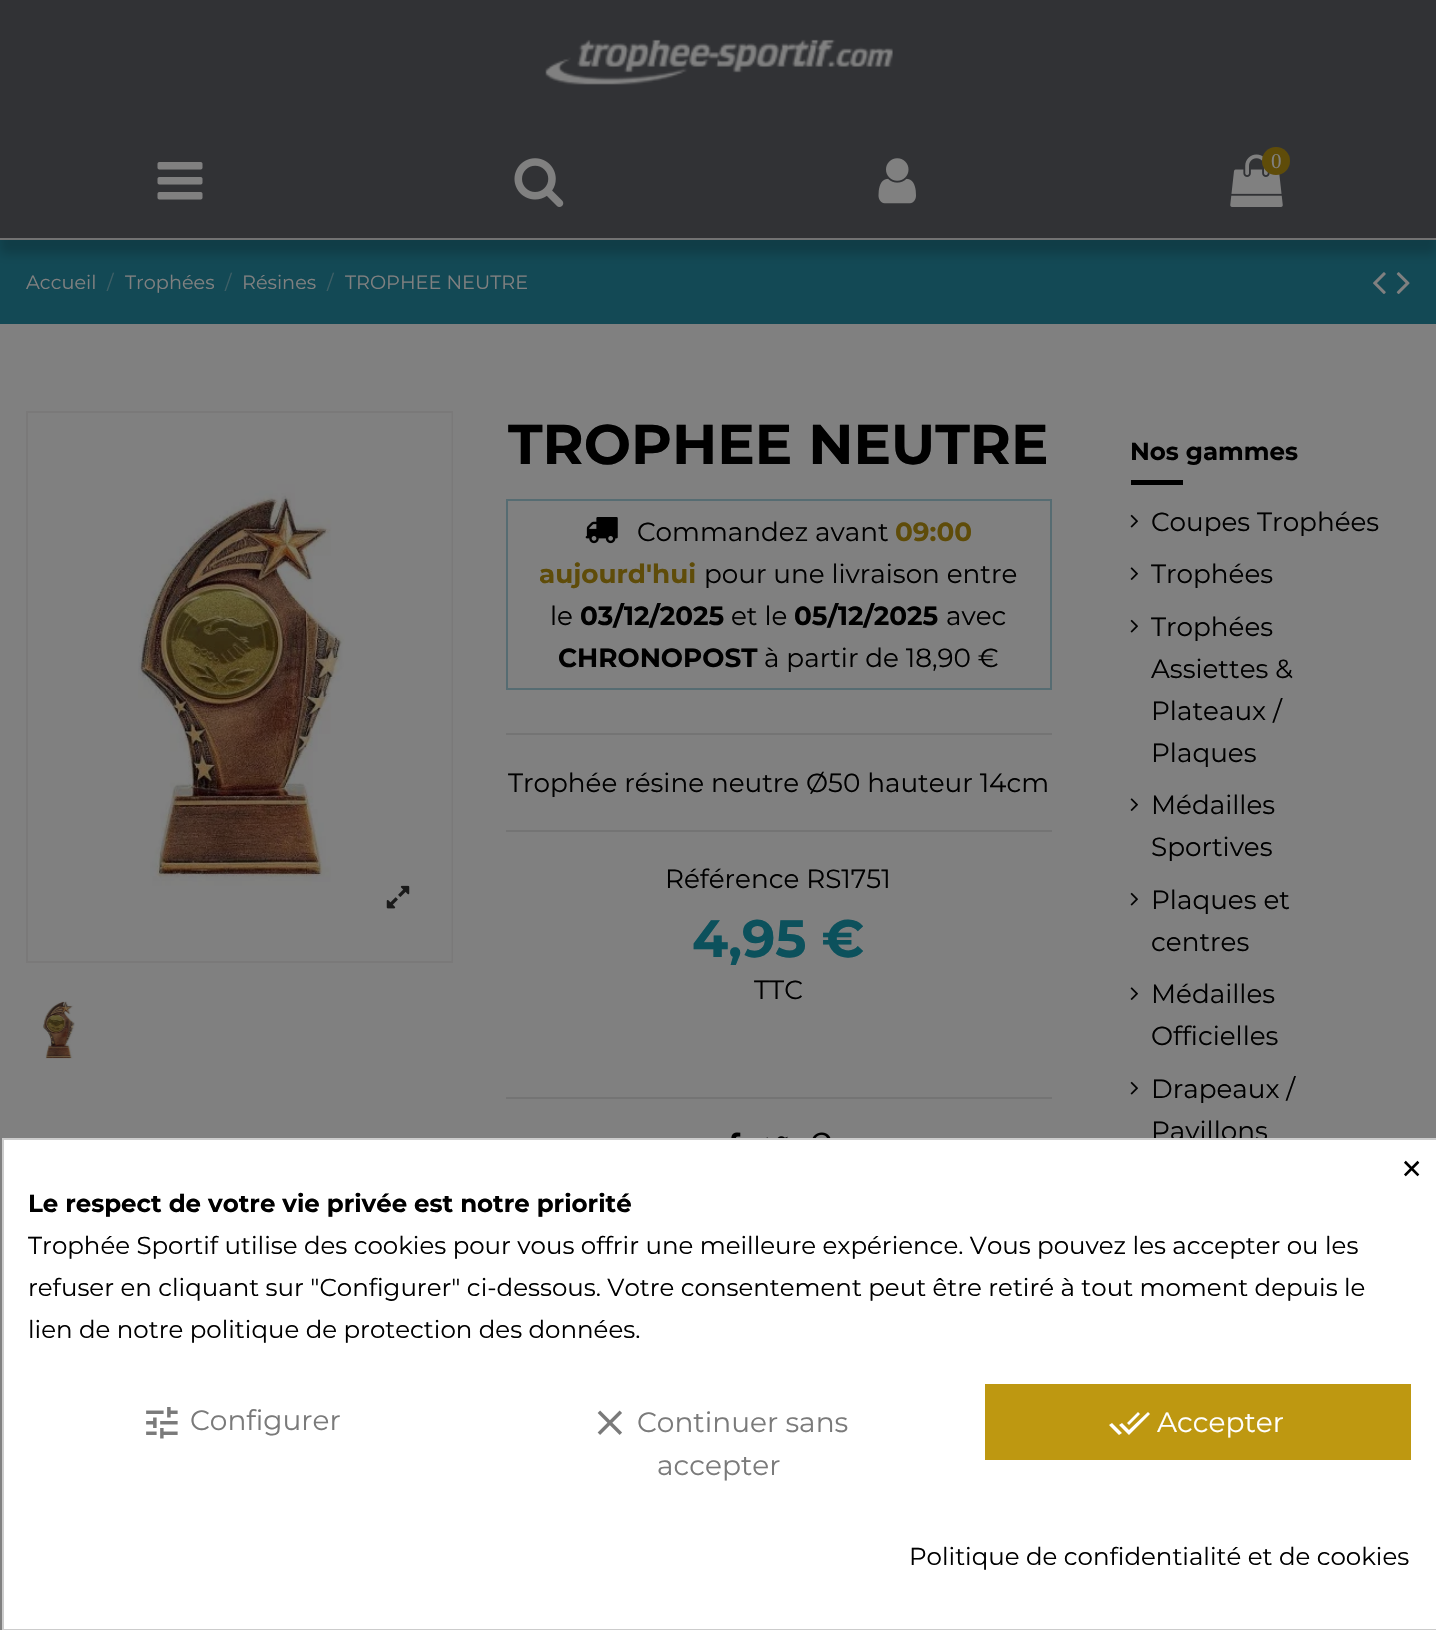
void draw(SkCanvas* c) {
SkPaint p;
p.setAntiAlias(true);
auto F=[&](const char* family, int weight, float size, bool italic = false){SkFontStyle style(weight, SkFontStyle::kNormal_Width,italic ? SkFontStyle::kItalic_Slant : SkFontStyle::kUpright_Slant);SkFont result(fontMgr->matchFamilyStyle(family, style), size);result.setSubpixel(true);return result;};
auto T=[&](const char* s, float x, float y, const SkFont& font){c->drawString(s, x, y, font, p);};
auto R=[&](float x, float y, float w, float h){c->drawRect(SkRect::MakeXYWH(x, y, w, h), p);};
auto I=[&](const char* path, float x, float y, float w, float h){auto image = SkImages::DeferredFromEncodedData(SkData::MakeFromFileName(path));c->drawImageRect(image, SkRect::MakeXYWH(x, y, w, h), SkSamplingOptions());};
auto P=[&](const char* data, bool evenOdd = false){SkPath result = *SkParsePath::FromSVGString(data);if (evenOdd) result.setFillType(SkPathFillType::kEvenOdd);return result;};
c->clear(0xff808080);
p.setColor(0xff134955);
R(0,240,1436,84);
p.setColor(0x2b000000);
p.setMaskFilter(SkMaskFilter::MakeBlur(kNormal_SkBlurStyle, 5));
c->drawRect(SkRect::MakeXYWH(0,14,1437,240),p);
p.setMaskFilter(nullptr);
p.setColor(0xff313235);
R(0,0,1436,238);
p.setColor(0xff727272);
R(0,238,1436,2);
I("1.png",545,39,348,46);
I("2.png",157,162,46,38);
I("3.png",514,158,50,49);
I("4.png",878,158,38,46);
I("5.png",1230,154,53,53);
p.setColor(0xff5f4c09);
c->drawCircle(1276,161,14,p);
auto f1 = F("Liberation Serif",400,21);
p.setColor(0xff808080);
T("0",1271,168,f1);
auto f2 = F("Montserrat",400,19.25);
T("Accueil",26,289,f2);
p.setColor(0xff3e5f66);
T("/",107,289,f2);
p.setColor(0xff808080);
T("Trophées",125,289,f2);
p.setColor(0xff3e5f66);
T("/",225,289,f2);
p.setColor(0xff808080);
T("Résines",242,289,f2);
p.setColor(0xff3e5f66);
T("/",327,289,f2);
p.setColor(0xff808080);
T("TROPHEE NEUTRE",345,289,f2);
I("6.png",1373,272,13,22);
I("7.png",1396,272,14,22);
p.setStroke(true);
p.setStrokeWidth(2);
p.setColor(0xff7a7979);
c->drawRect(SkRect::MakeXYWH(27,412,425,550),p);
I("8.png",138,413,314,548);
I("9.png",386,885,24,24);
I("10.png",43,1001,32,58);
p.setStroke(false);
p.setColor(0xff747474);
R(506,733,546,2);
auto f3 = F("Montserrat",700,56);
p.setColor(0xff000000);
T("TROPHEE NEUTRE",508,464,f3);
p.setStroke(true);
p.setColor(0xff566c72);
c->drawRect(SkRect::MakeXYWH(507,500,544,189),p);
I("11.png",585,517,33,27);
auto f4 = F("Montserrat",400,26.25);
p.setStroke(false);
p.setColor(0xff000000);
T("Commandez avant",637,541,f4);
auto f5 = F("Montserrat",700,26.25);
p.setColor(0xff5f4c09);
T("09:00",895,541,f5);
T("aujourd'hui",539,583,f5);
p.setColor(0xff000000);
T("pour une livraison entre",704,583,f4);
T("le",550,625,f4);
T("03/12/2025",580,625,f5);
T("et le",731,625,f4);
T("05/12/2025",794,625,f5);
T("avec",946,625,f4);
T("CHRONOPOST",558,667,f5);
T("à partir de 18,90 €",764,667,f4);
T("Trophée résine neutre Ø50 hauteur 14cm",508,792,f4);
p.setColor(0xff747474);
R(506,830,546,2);
p.setColor(0xff000000);
T("Référence RS1751",665,888,f4);
auto f6 = F("Montserrat",700,52.5);
p.setColor(0xff0c515c);
T("4,95 €",692,957,f6);
p.setColor(0xff000000);
T("TTC",754,999,f4);
p.setColor(0xff747474);
R(506,1097,546,2);
I("12.png",731,1132,10,6);
I("13.png",766,1136,22,2);
I("14.png",812,1132,19,6);
auto f7 = F("Montserrat",700,24.5);
p.setColor(0xff000000);
T("Nos gammes",1130,460,f7);
R(1131,480,52,5);
I("15.png",1130,514,8,14);
T("Coupes Trophées",1151,531,f4);
I("16.png",1130,567,8,13);
T("Trophées",1151,583,f4);
I("15.png",1130,619,8,14);
T("Trophées",1151,636,f4);
T("Assiettes &",1151,678,f4);
T("Plateaux /",1151,720,f4);
T("Plaques",1151,762,f4);
I("16.png",1130,798,8,13);
T("Médailles",1151,814,f4);
T("Sportives",1151,856,f4);
I("15.png",1130,892,8,14);
T("Plaques et",1151,909,f4);
T("centres",1151,951,f4);
I("16.png",1130,987,8,13);
T("Médailles",1151,1003,f4);
T("Officielles",1151,1045,f4);
I("15.png",1130,1081,8,14);
T("Drapeaux /",1151,1098,f4);
T("Pavillons",1151,1140,f4);
p.setColor(0xffffffff);
c->drawRect(SkRect::MakeXYWH(3,1139,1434,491),p);
p.setStroke(true);
p.setColor(0xffcccccc);
c->drawRect(SkRect::MakeXYWH(3,1139,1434,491),p);
auto f8 = F("Montserrat",400,44);
p.setStroke(false);
p.setColor(0xff000000);
T("×",1399,1184,f8);
T("Le respect de votre vie privée est notre priorité",28,1212,f7);
auto f9 = F("Montserrat",400,24.5);
T("Trophée Sportif utilise des cookies pour vous offrir une meilleure expérience. Vous pouvez les accepter ou les",28,1254,f9);
T("refuser en cliquant sur \"Configurer\" ci-dessous. Votre consentement peut être retiré à tout moment depuis le",28,1296,f9);
T("lien de notre politique de protection des données.",28,1338,f9);
I("17.png",146,1407,32,32);
auto f10 = F("Montserrat",400,28);
p.setColor(0xff7a7a7a);
T("Configurer",190,1430,f10);
I("18.png",597,1410,25,25);
T("Continuer sans",637,1432,f10);
T("accepter",657,1475,f10);
p.setColor(0xffbe9811);
R(985,1384,426,76);
p.setColor(0xffffffff);
c->drawPath(P("M1109 1425l3-2l10 10l-3 2zm39-13l2 2l-21 21l-10-10l3-2l7 7zm-8 2l-11 11l-2-2l11-11z"),p);
T("Accepter",1157,1432,f10);
p.setColor(0xff000000);
T("Politique de confidentialité et de cookies",909,1565,f9);
}
